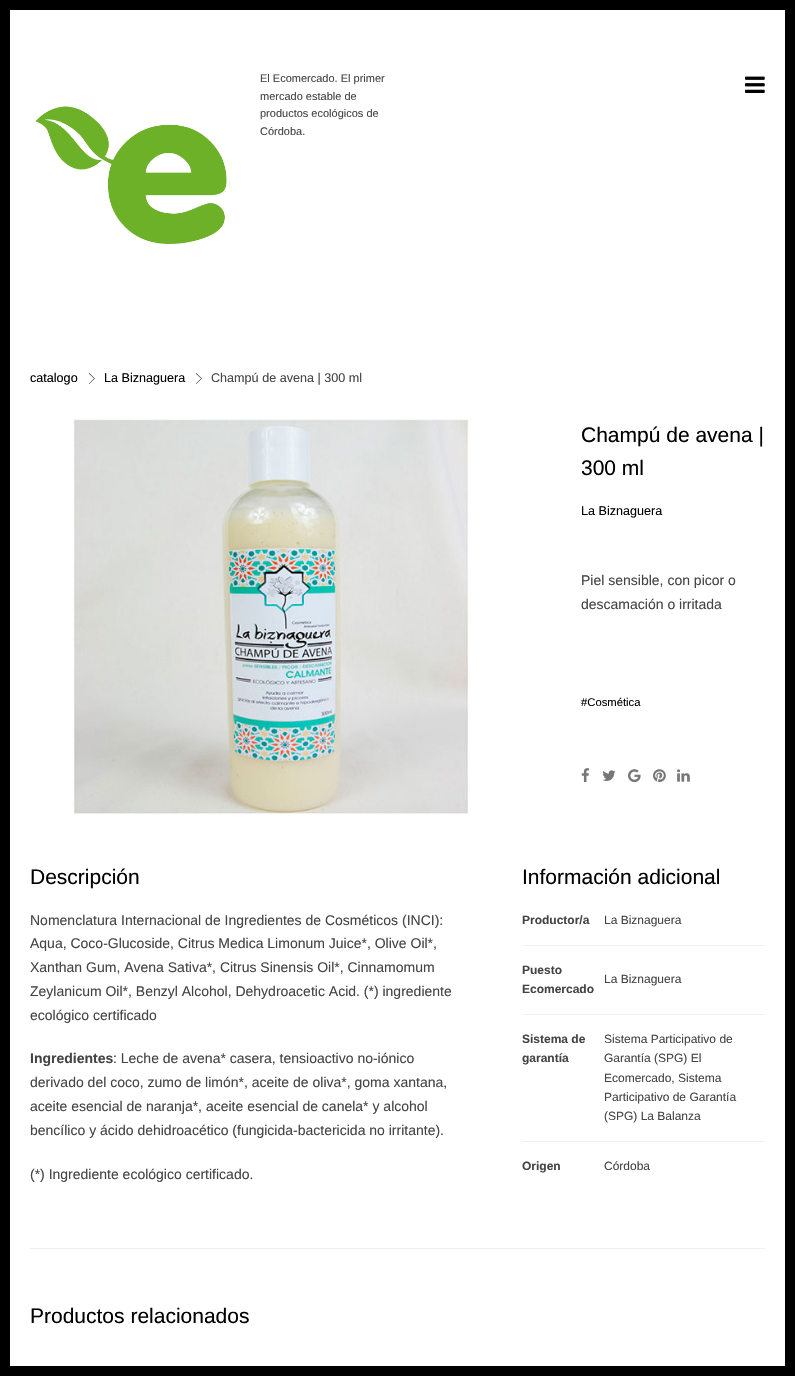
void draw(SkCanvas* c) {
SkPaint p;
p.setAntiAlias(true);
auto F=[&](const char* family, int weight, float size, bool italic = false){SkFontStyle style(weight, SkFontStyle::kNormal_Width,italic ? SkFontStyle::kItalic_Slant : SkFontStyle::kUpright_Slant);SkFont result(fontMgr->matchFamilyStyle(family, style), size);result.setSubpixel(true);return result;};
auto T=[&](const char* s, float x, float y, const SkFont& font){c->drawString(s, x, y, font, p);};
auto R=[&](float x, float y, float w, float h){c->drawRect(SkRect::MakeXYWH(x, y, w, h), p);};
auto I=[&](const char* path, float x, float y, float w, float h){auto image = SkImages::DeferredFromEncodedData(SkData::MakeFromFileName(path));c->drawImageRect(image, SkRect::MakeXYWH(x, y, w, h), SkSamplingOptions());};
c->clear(0xffffffff);
p.setColor(0xff000000);
R(0,0,795,10);
R(0,10,10,1356);
I("1.png",35,106,195,138);
auto f1 = F("Liberation Sans",400,11);
p.setColor(0xff444444);
T("El Ecomercado. El primer",260,82,f1);
T("mercado estable de",260,100,f1);
T("productos ecológicos de",260,117,f1);
T("Córdoba.",260,135,f1);
I("2.png",745,76,20,17);
auto f2 = F("Liberation Sans",400,12.6);
p.setColor(0xff000000);
T("catalogo",30,382,f2);
auto f3 = F("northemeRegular",400,24);
p.setColor(0xff444444);
T(">",88,386,f3);
p.setColor(0xff000000);
T("La Biznaguera",104,382,f2);
p.setColor(0xff444444);
T(">",195,386,f3);
T("Champú de avena | 300 ml",211,382,f2);
I("3.png",73,419,396,396);
auto f4 = F("Liberation Sans",400,21);
p.setColor(0xff000000);
T("Champú de avena |",581,442,f4);
T("300 ml",581,475,f4);
T("La Biznaguera",581,515,f2);
auto f5 = F("Liberation Sans",400,14);
p.setColor(0xff444444);
T("Piel sensible, con picor o",581,585,f5);
T("descamación o irritada",581,609,f5);
auto f6 = F("Liberation Sans",400,11.25);
p.setColor(0xff000000);
T("#Cosmética",581,706,f6);
I("4.png",581,768,8,15);
I("5.png",602,770,14,11);
I("6.png",628,769,13,14);
I("7.png",653,769,13,14);
I("8.png",677,769,13,13);
T("Descripción",30,884,f4);
p.setColor(0xff444444);
T("Nomenclatura Internacional de Ingredientes de Cosméticos (INCI):",30,925,f5);
T("Aqua, Coco-Glucoside, Citrus Medica Limonum Juice*, Olive Oil*,",30,948,f5);
T("Xanthan Gum, Avena Sativa*, Citrus Sinensis Oil*, Cinnamomum",30,972,f5);
T("Zeylanicum Oil*, Benzyl Alcohol, Dehydroacetic Acid. (*) ingrediente",30,996,f5);
T("ecológico certificado",30,1020,f5);
auto f7 = F("Liberation Sans",700,14);
T("Ingredientes",30,1063,f7);
T(": Leche de avena* casera, tensioactivo no-iónico",113,1063,f5);
T("derivado del coco, zumo de limón*, aceite de oliva*, goma xantana,",30,1087,f5);
T("aceite esencial de naranja*, aceite esencial de canela* y alcohol",30,1111,f5);
T("bencílico y ácido dehidroacético (fungicida-bactericida no irritante).",30,1135,f5);
T("(*) Ingrediente ecológico certificado.",30,1179,f5);
p.setColor(0xff000000);
T("Información adicional",522,884,f4);
p.setColor(0xfff0f0f0);
R(522,945,243,1);
auto f8 = F("Liberation Sans",700,12);
p.setColor(0xff444444);
T("Productor/a",522,924,f8);
auto f9 = F("Liberation Sans",400,12);
T("La Biznaguera",604,924,f9);
p.setColor(0xfff0f0f0);
R(522,1014,243,1);
p.setColor(0xff444444);
T("Puesto",522,974,f8);
T("Ecomercado",522,993,f8);
T("La Biznaguera",604,983,f9);
p.setColor(0xfff0f0f0);
R(522,1141,243,1);
p.setColor(0xff444444);
T("Sistema de",522,1043,f8);
T("garantía",522,1062,f8);
T("Sistema Participativo de",604,1043,f9);
T("Garantía (SPG) El",604,1062,f9);
T("Ecomercado, Sistema",604,1082,f9);
T("Participativo de Garantía",604,1101,f9);
T("(SPG) La Balanza",604,1120,f9);
T("Origen",522,1170,f8);
T("Córdoba",604,1170,f9);
p.setColor(0xfff0f0f0);
R(30,1248,735,1);
p.setColor(0xff000000);
T("Productos relacionados",30,1323,f4);
R(785,10,10,1356);
R(0,1366,795,10);
}
